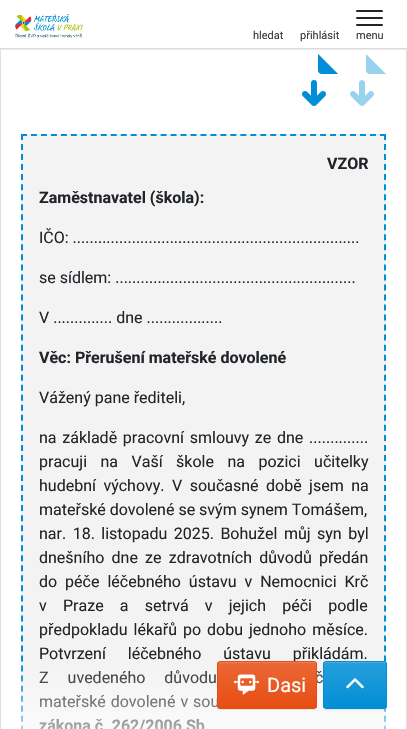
void draw(SkCanvas* c) {
SkPaint p;
p.setAntiAlias(true);
auto F=[&](const char* family, int weight, float size, bool italic = false){SkFontStyle style(weight, SkFontStyle::kNormal_Width,italic ? SkFontStyle::kItalic_Slant : SkFontStyle::kUpright_Slant);SkFont result(fontMgr->matchFamilyStyle(family, style), size);result.setSubpixel(true);return result;};
auto T=[&](const char* s, float x, float y, const SkFont& font){c->drawString(s, x, y, font, p);};
auto L=[&](const char* s, float x, float y, const SkFont& font, const SkPaint& ink, float letter, float word){std::vector<SkGlyphID> glyphs(font.countText(s, strlen(s), SkTextEncoding::kUTF8));std::vector<float> xs(glyphs.size());font.textToGlyphs(s, strlen(s), SkTextEncoding::kUTF8, glyphs);font.getXPos(glyphs, xs, x);float extra = 0;for (size_t i = 0; i < glyphs.size(); i++) {xs[i] += extra;extra += letter + word * (glyphs[i] == font.unicharToGlyph(' '));}c->drawTextBlob(SkTextBlob::MakeFromPosHGlyphs(glyphs, xs, y, font), 0, 0, ink);};
auto R=[&](float x, float y, float w, float h){c->drawRect(SkRect::MakeXYWH(x, y, w, h), p);};
auto Q=[&](float x, float y, float w, float h, float radius){c->drawRoundRect(SkRect::MakeXYWH(x, y, w, h), radius, radius, p);};
auto I=[&](const char* path, float x, float y, float w, float h){auto image = SkImages::DeferredFromEncodedData(SkData::MakeFromFileName(path));c->drawImageRect(image, SkRect::MakeXYWH(x, y, w, h), SkSamplingOptions());};
auto P=[&](const char* data, bool evenOdd = false){SkPath result = *SkParsePath::FromSVGString(data);if (evenOdd) result.setFillType(SkPathFillType::kEvenOdd);return result;};
c->clear(0xffffffff);
p.setStroke(true);
p.setStrokeWidth(1);
p.setColor(0xffdfdfdf);
c->drawRect(SkRect::MakeXYWH(.5,-.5,406,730),p);
p.setStroke(false);
p.setColor(0xffeeeeee);
p.setMaskFilter(SkMaskFilter::MakeBlur(kNormal_SkBlurStyle, .5));
c->drawRect(SkRect::MakeXYWH(1,1,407,49),p);
p.setMaskFilter(nullptr);
p.setColor(0xffffffff);
R(0,0,407,48);
p.setColor(0xffdadada);
R(0,48,407,1);
I("1.png",15,14,68,24);
auto f1 = F("Roboto",400,11);
p.setColor(0xff343a40);
T("hledat",253,39,f1);
T("přihlásit",300,39,f1);
p.setColor(0xff212529);
Q(356,10,27,2,1);
Q(356,17,27,2,1);
Q(356,24,27,2,1);
p.setColor(0xff343a40);
T("menu",356,39,f1);
I("2.png",302,54,36,52);
I("3.png",302,54,84,52);
p.setColor(0xfff3f3f3);
R(21,134,365,595);
p.setStroke(true);
p.setStrokeWidth(2);
p.setColor(0xff008ed6);
p.setPathEffect(SkDashPathEffect::Make({{6,3.97f}}, 0));
c->drawPath(P("M21 135h365"),p);
p.setPathEffect(nullptr);
p.setPathEffect(SkDashPathEffect::Make({{6,4.03f}}, 0));
c->drawPath(P("M385 134v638"),p);
p.setPathEffect(nullptr);
p.setPathEffect(SkDashPathEffect::Make({{6,4.03f}}, 0));
c->drawPath(P("M22 134v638"),p);
p.setPathEffect(nullptr);
auto f2 = F("Roboto",700,16);
p.setStroke(false);
p.setColor(0xff212529);
T("VZOR",327,169,f2);
T("Zaměstnavatel (škola):",39,203,f2);
auto f3 = F("Roboto",400,16);
T("IČO: ....................................................................",39,243,f3);
T("se sídlem: .........................................................",39,283,f3);
T("V .............. dne ..................",39,323,f3);
T("Věc: Přerušení mateřské dovolené",39,363,f2);
T("Vážený pane řediteli,",39,403,f3);
L("na základě pracovní smlouvy ze dne ..............",39,443,f3,p,0,1.75);
L("pracuji na Vaší škole na pozici učitelky",39,467,f3,p,0,9.5);
L("hudební výchovy. V současné době jsem na",39,491,f3,p,0,3.5);
T("mateřské dovolené se svým synem Tomášem,",39,515,f3);
L("nar. 18. listopadu 2025. Bohužel můj syn byl",39,539,f3,p,0,2.5);
L("dnešního dne ze zdravotních důvodů předán",39,563,f3,p,0,3.25);
L("do péče léčebného ústavu v Nemocnici Krč",39,587,f3,p,0,4);
L("v Praze a setrvá v jejich péči podle",39,611,f3,p,0,12.25);
L("předpokladu lékařů po dobu jednoho měsíce.",39,635,f3,p,0,2);
L("Potvrzení léčebného ústavu přikládám.",39,659,f3,p,0,18);
L("Z uvedeného důvodu",39,683,f3,p,0,15);
L("č",315,683,f3,p,0,15);
L("mateřské dovolené v sou",39,707,f3,p,0,1);
T("zákona č. 262/2006 Sb.",39,731,f2);
{
const SkColor colors[] = {0x00ffffff,0xffffffff};
const float stops[] = {0,1};
const SkPoint ends[] = {{204,660}, {204,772}};
p.setShader(SkGradientShader::MakeLinear(ends, colors, stops, 2, SkTileMode::kClamp));
p.setAlpha(255);
}
R(21,665,365,64);
p.setShader(nullptr);
p.setColor(0x12000000);
p.setMaskFilter(SkMaskFilter::MakeBlur(kNormal_SkBlurStyle, .5));
c->drawRoundRect(SkRect::MakeXYWH(217,662,100,48),3,3,p);
p.setMaskFilter(nullptr);
c->save();
c->clipPath(P("M220 661h94c1.5 0 3 1.5 3 3v42c0 1.5-1.5 3-3 3h-94c-1.5 0-3-1.5-3-3v-42c0-1.5 1.5-3 3-3z"),true);
{
const SkColor colors[] = {0xffeb6836,0xffe74d12};
const float stops[] = {0,1};
const SkPoint ends[] = {{267,662}, {267,708}};
p.setShader(SkGradientShader::MakeLinear(ends, colors, stops, 2, SkTileMode::kClamp));
p.setAlpha(255);
}
R(217,662,100,46);
c->restore();
p.setShader(nullptr);
p.setColor(0x26ffffff);
c->drawPath(P("M220 663h94c1 0 2 1 2 2c0-1 0-3-2-3h-78c-2 0-18-4-18 3c0-1 1-2 2-2z"),p);
p.setStroke(true);
p.setStrokeWidth(1);
p.setColor(0xffe74d12);
c->drawRoundRect(SkRect::MakeXYWH(217.5,661.5,99,47),2.5,2.5,p);
I("4.png",234,674,25,21);
auto f4 = F("Roboto",400,20);
p.setStroke(false);
p.setColor(0xffffffff);
T("Dasi",267,692,f4);
p.setColor(0x12000000);
p.setMaskFilter(SkMaskFilter::MakeBlur(kNormal_SkBlurStyle, .5));
c->drawRoundRect(SkRect::MakeXYWH(323,662,64,48),3,3,p);
p.setMaskFilter(nullptr);
c->save();
c->clipPath(P("M326 661h58c1.5 0 3 1.5 3 3v42c0 1.5-1.5 3-3 3h-58c-1.5 0-3-1.5-3-3v-42c0-1.5 1.5-3 3-3z"),true);
{
const SkColor colors[] = {0xff269fdc,0xff008ed6};
const float stops[] = {0,1};
const SkPoint ends[] = {{355,662}, {355,708}};
p.setShader(SkGradientShader::MakeLinear(ends, colors, stops, 2, SkTileMode::kClamp));
p.setAlpha(255);
}
R(323,662,64,46);
c->restore();
p.setShader(nullptr);
p.setColor(0x26ffffff);
c->drawPath(P("M326 663h58c1 0 2 1 2 2c0-6-8-3-12-3h-38c-4 0-12-3-12 3c0-1 1-2 2-2z"),p);
p.setStroke(true);
p.setColor(0xff008ed6);
c->drawRoundRect(SkRect::MakeXYWH(323.5,661.5,63,47),2.5,2.5,p);
I("5.png",346,678,18,11);
}
